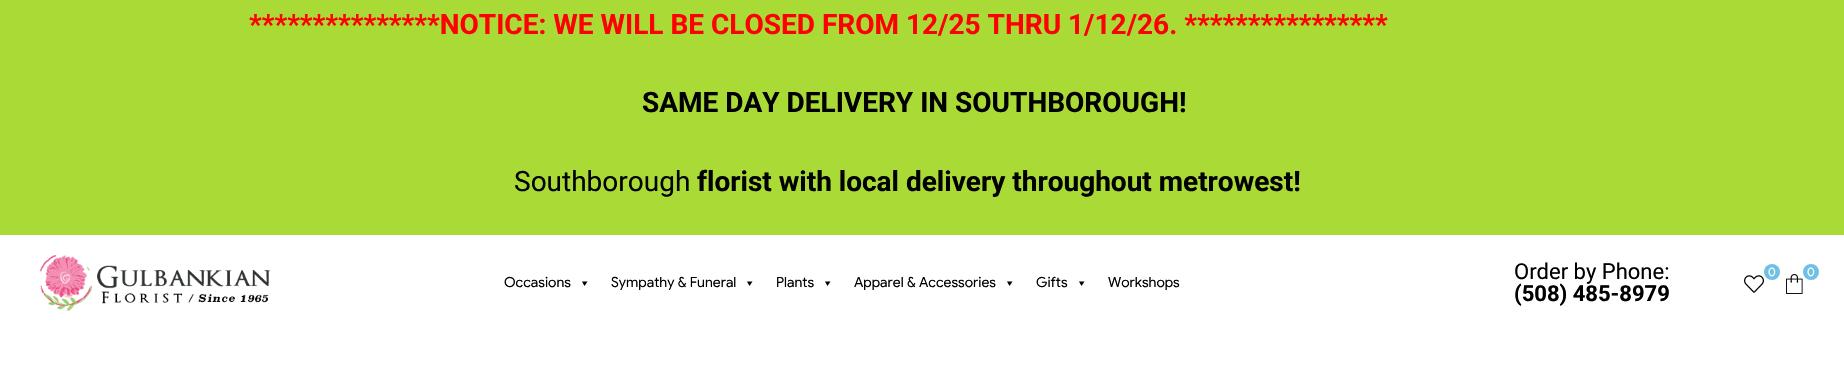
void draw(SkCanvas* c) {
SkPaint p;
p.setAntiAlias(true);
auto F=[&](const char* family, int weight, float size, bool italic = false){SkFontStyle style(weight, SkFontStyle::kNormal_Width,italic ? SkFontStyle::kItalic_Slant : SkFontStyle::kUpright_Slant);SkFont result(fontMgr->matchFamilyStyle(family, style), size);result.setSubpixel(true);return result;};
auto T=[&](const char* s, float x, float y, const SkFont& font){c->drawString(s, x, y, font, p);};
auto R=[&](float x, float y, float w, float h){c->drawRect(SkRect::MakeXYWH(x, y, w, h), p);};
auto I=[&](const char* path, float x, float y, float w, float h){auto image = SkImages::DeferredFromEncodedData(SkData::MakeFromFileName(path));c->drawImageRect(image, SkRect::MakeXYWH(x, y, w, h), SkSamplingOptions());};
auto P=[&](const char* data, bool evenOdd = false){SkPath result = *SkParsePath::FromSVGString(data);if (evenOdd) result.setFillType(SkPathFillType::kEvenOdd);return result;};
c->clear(0xffffffff);
p.setColor(0xffaada36);
R(0,0,1844,235);
auto f1 = F("Roboto",700,28);
p.setColor(0xffff0000);
T("***************NOTICE: WE WILL BE CLOSED FROM 12/25 THRU 1/12/26. ****************",249,34,f1);
p.setColor(0xff000000);
T("SAME DAY DELIVERY IN SOUTHBOROUGH!",642,112,f1);
auto f2 = F("Roboto",400,28);
T("Southborough",514,191,f2);
T("florist with local delivery throughout metrowest!",697,191,f1);
I("1.png",40,255,230,56);
auto f3 = F("Roboto",400,22);
T("Order by Phone:",1514,279,f3);
auto f4 = F("Roboto",700,22);
T("(508) 485-8979",1514,301,f4);
p.setColor(0xff6ec1e4);
c->drawCircle(1772,272,8,p);
auto f5 = F("Google Sans",400,12);
p.setColor(0xffffffff);
T("0",1768,276,f5);
I("2.png",1744,275,20,18);
p.setColor(0xff6ec1e4);
c->drawCircle(1811,272,8,p);
p.setColor(0xffffffff);
T("0",1807,276,f5);
I("3.png",1786,274,17,20);
auto f6 = F("Google Sans",400,14);
p.setColor(0xff000000);
T("Occasions",504,287,f6);
c->drawPath(P("M587.5 281.5l-3 4.5l-2.5-4.5z"),p);
T("Sympathy & Funeral",611,287,f6);
c->drawPath(P("M752.5 281.5l-3 4.5l-2.5-4.5z"),p);
T("Plants",776,287,f6);
c->drawPath(P("M830.5 281.5l-3 4.5l-2.5-4.5z"),p);
T("Apparel & Accessories",854,287,f6);
c->drawPath(P("M1012.5 281.5l-3 4.5l-2.5-4.5z"),p);
T("Gifts",1036,287,f6);
c->drawPath(P("M1084.5 281.5l-3 4.5l-2.5-4.5z"),p);
T("Workshops",1108,287,f6);
}
